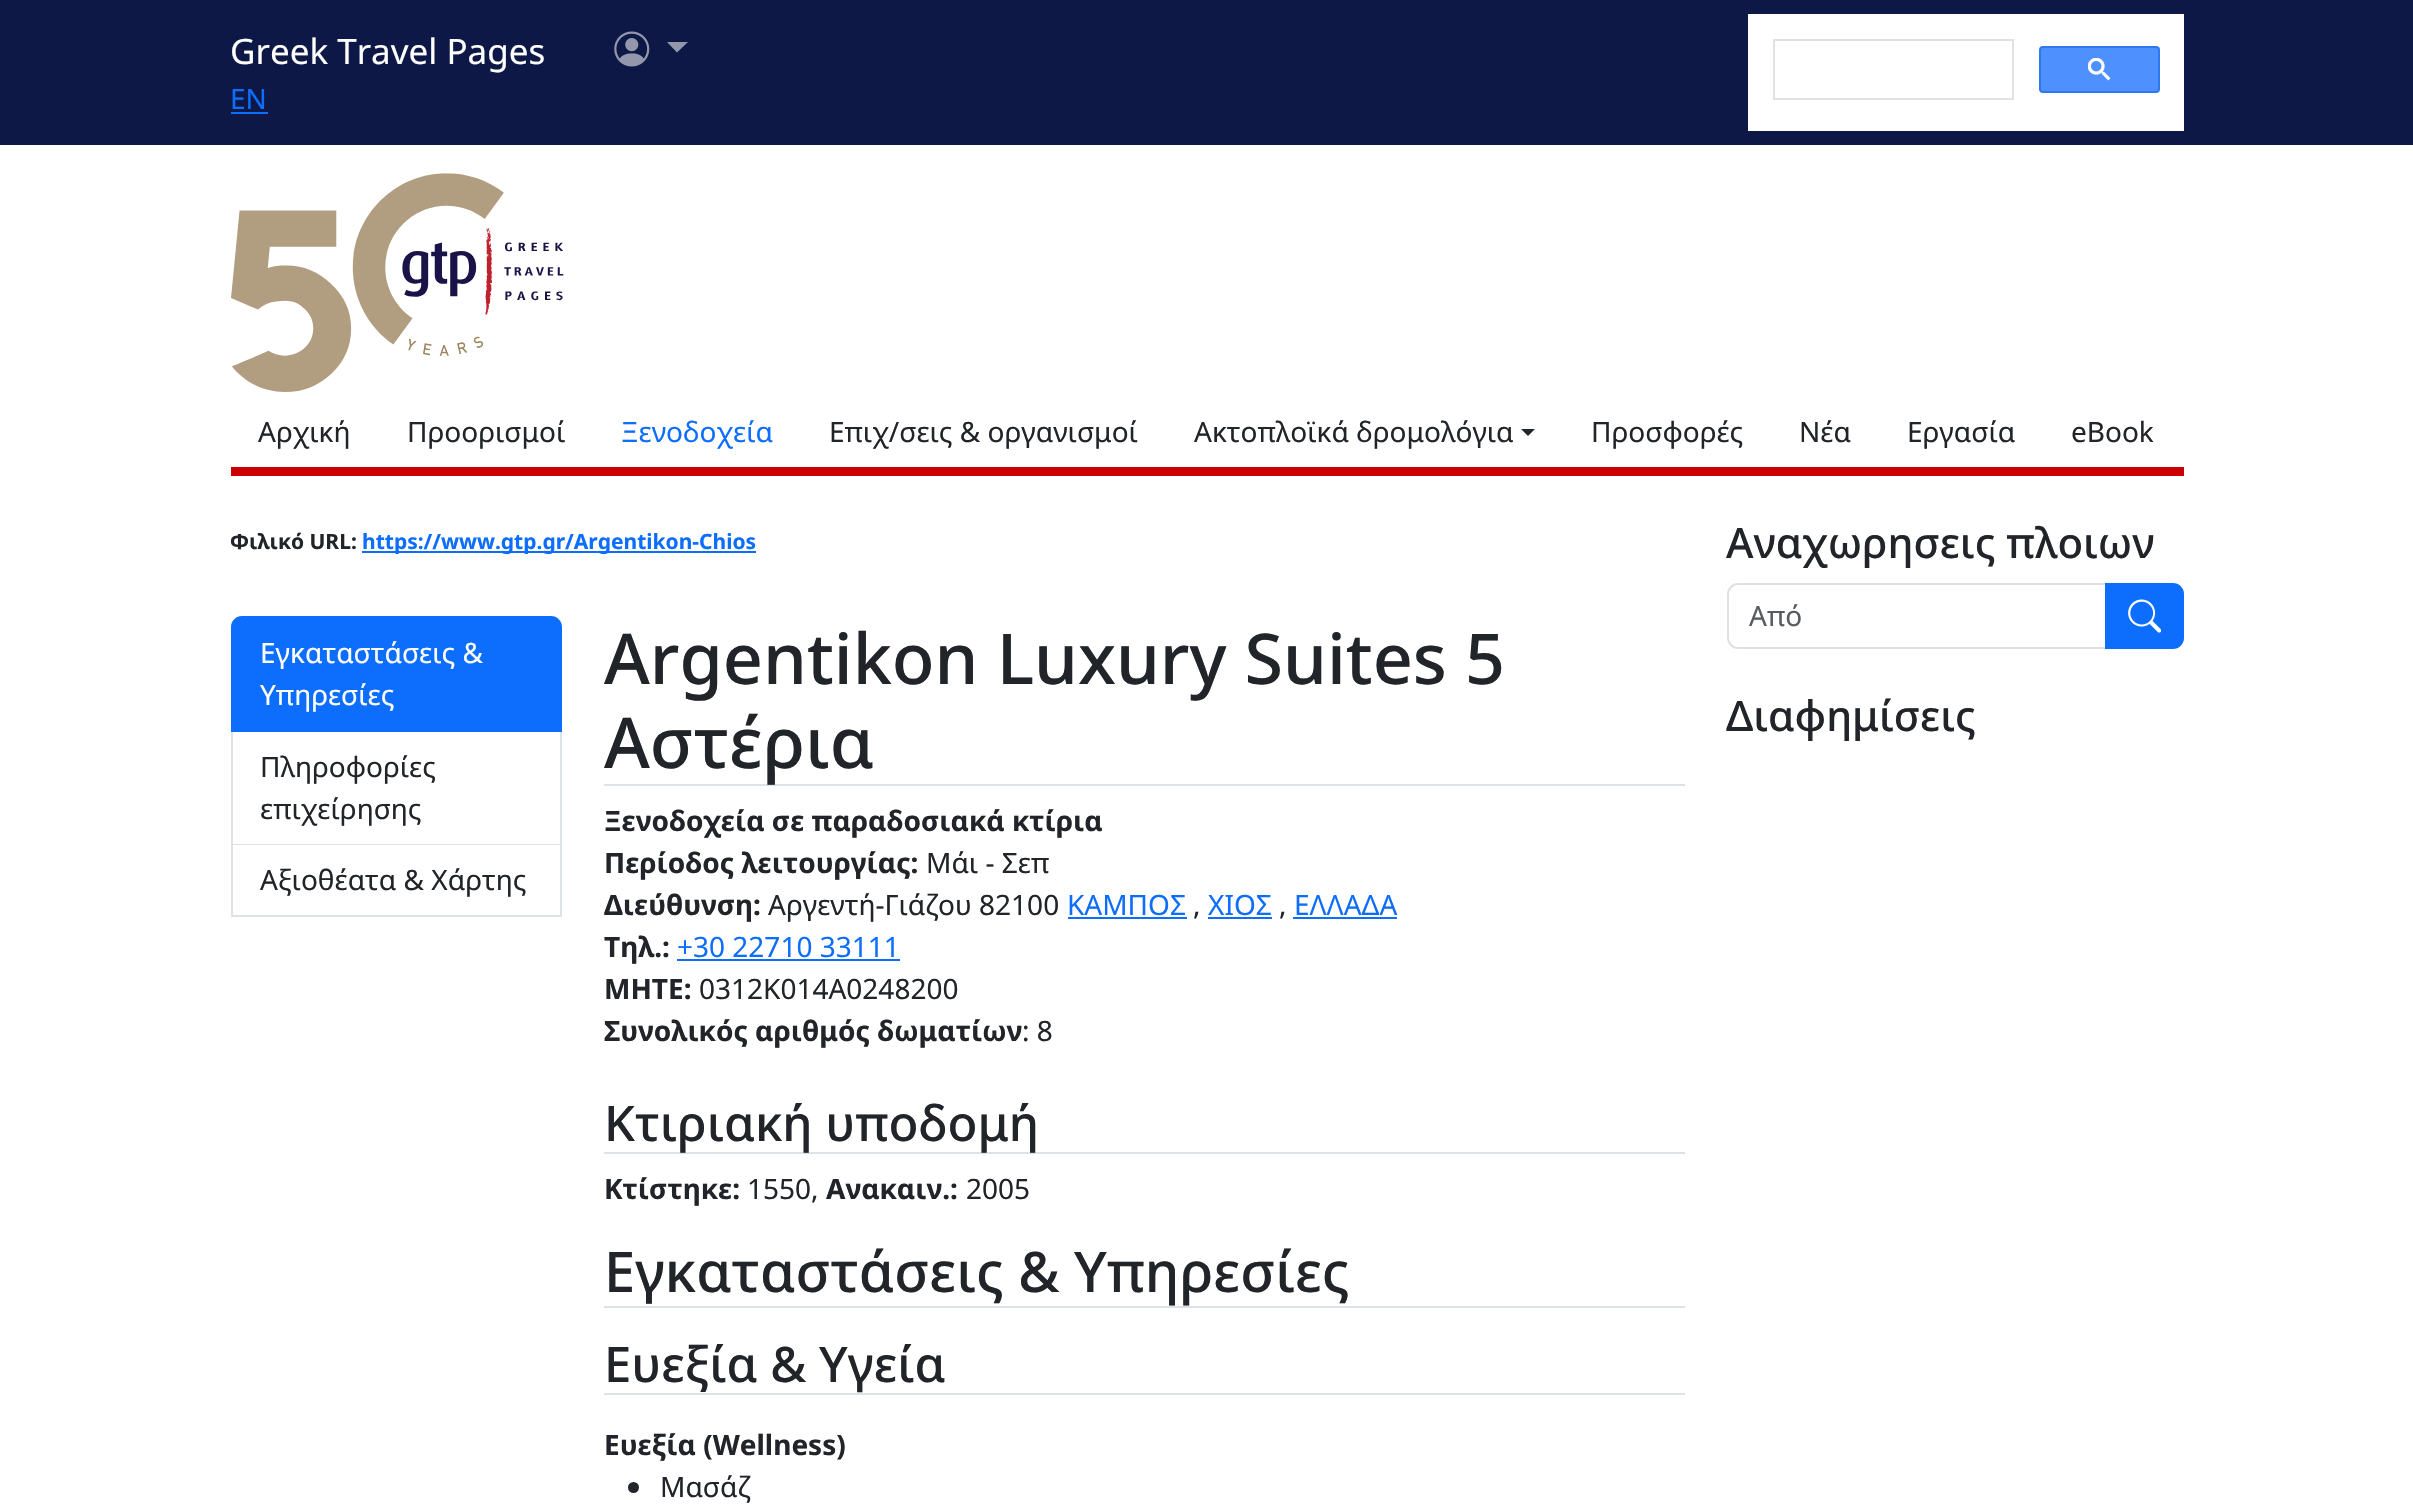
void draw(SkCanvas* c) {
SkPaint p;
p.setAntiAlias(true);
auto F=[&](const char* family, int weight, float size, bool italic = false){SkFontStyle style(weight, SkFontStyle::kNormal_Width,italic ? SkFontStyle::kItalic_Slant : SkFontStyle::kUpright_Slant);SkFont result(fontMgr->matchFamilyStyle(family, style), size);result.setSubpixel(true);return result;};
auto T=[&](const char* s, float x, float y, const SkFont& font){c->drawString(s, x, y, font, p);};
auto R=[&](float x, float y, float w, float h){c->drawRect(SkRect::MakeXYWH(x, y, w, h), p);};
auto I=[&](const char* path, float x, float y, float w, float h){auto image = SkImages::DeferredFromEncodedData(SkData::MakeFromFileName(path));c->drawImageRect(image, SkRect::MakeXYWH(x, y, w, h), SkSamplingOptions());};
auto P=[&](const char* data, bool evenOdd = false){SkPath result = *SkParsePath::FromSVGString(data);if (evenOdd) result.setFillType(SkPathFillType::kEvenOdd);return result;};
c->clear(0xffffffff);
p.setColor(0xff0d1846);
R(0,0,2413,145);
auto f1 = F("Noto Sans",400,35);
p.setColor(0xffffffff);
T("Greek Travel Pages",230,64,f1);
auto f2 = F("Noto Sans",400,28);
p.setColor(0xff0d6efd);
T("EN",230,109,f2);
R(231,112,37,2);
I("1.png",614,31,36,36);
p.setColor(0xff9297ac);
c->drawPath(P("M667 42h21l-11 10.5z"),p);
p.setColor(0xffffffff);
R(1748,14,436,117);
p.setStroke(true);
p.setStrokeWidth(2);
p.setColor(0xffdfe1e5);
c->drawRect(SkRect::MakeXYWH(1774,40,239,59),p);
p.setStroke(false);
p.setColor(0xff4d90fe);
c->drawRoundRect(SkRect::MakeXYWH(2040,47,119,45),3,3,p);
p.setStroke(true);
p.setColor(0xff3079ed);
c->drawRoundRect(SkRect::MakeXYWH(2040,47,119,45),3,3,p);
I("2.png",2088,58,23,23);
I("3.png",231,173,333,219);
p.setStroke(false);
p.setColor(0xffcc0000);
R(231,467,1953,9);
p.setColor(0xff212529);
T("Αρχική",258,442,f2);
T("Προορισμοί",407,442,f2);
p.setColor(0xff0d6efd);
T("Ξενοδοχεία",621,442,f2);
p.setColor(0xff212529);
T("Επιχ/σεις & οργανισμοί",829,442,f2);
T("Ακτοπλοϊκά δρομολόγια",1194,442,f2);
c->drawPath(P("M1521 429h14l-7 7z"),p);
T("Προσφορές",1591,442,f2);
T("Nέα",1799,442,f2);
T("Εργασία",1907,442,f2);
T("eBook",2071,442,f2);
auto f3 = F("Noto Sans",700,21);
T("Φιλικό URL:",230,549,f3);
p.setColor(0xff0d6efd);
R(362,551,394,2);
T("https://www.gtp.gr/Argentikon-Chios",362,549,f3);
c->drawPath(P("M242 617h309c5.5 0 10 4.5 10 10v104h-329v-104c0-5.5 4.5-10 10-10z"),p);
p.setStroke(true);
c->drawPath(P("M242 617h309c5.5 0 10 4.5 10 10v104h-329v-104c0-5.5 4.5-10 10-10z"),p);
p.setStroke(false);
p.setColor(0xffffffff);
T("Εγκαταστάσεις &",260,663,f2);
T("Υπηρεσίες",260,705,f2);
p.setColor(0xffdee2e6);
R(560,732,2,185);
R(231,844,331,1);
R(231,732,2,113);
p.setColor(0xff212529);
T("Πληροφορίες",260,777,f2);
T("επιχείρησης",260,819,f2);
p.setColor(0xffdee2e6);
R(231,915,331,2);
R(231,845,2,72);
p.setColor(0xff212529);
T("Αξιοθέατα & Xάρτης",260,890,f2);
p.setColor(0xffdee2e6);
R(604,784,1081,2);
auto f4 = F("Noto Sans",500,70);
p.setColor(0xff212529);
T("Argentikon Luxury Suites 5",604,684,f4);
T("Αστέρια",604,768,f4);
auto f5 = F("Noto Sans",700,28);
T("Ξενοδοχεία σε παραδοσιακά κτίρια",604,831,f5);
T("Περίοδος λειτουργίας:",604,873,f5);
T("Μάι - Σεπ",926,873,f2);
T("Διεύθυνση:",604,915,f5);
T("Αργεντή-Γιάζου 82100",768,915,f2);
p.setColor(0xff0d6efd);
T("ΚΑΜΠΟΣ",1067,915,f2);
R(1068,917,119,2);
p.setColor(0xff212529);
T(",",1193,915,f2);
p.setColor(0xff0d6efd);
T("ΧΙΟΣ",1208,915,f2);
R(1208,917,64,2);
p.setColor(0xff212529);
T(",",1279,915,f2);
p.setColor(0xff0d6efd);
T("ΕΛΛΑΔΑ",1294,915,f2);
R(1293,917,104,2);
p.setColor(0xff212529);
T("Τηλ.:",604,957,f5);
p.setColor(0xff0d6efd);
T("+30 22710 33111",677,957,f2);
R(677,959,223,2);
p.setColor(0xff212529);
T("MHTE:",604,999,f5);
T("0312Κ014Α0248200",699,999,f2);
T("Συνολικός αριθμός δωματίων",604,1041,f5);
T(": 8",1022,1041,f2);
p.setColor(0xffdee2e6);
R(604,1152,1081,2);
auto f6 = F("Noto Sans",500,49);
p.setColor(0xff212529);
T("Κτιριακή υποδομή",604,1141,f6);
T("Κτίστηκε:",604,1199,f5);
T("1550,",747,1199,f2);
T("Ανακαιν.:",826,1199,f5);
T("2005",966,1199,f2);
p.setColor(0xffdee2e6);
R(604,1306,1081,2);
auto f7 = F("Noto Sans",500,56);
p.setColor(0xff212529);
T("Εγκαταστάσεις & Υπηρεσίες",604,1292,f7);
p.setColor(0xffdee2e6);
R(604,1393,1081,2);
p.setColor(0xff212529);
T("Ευεξία & Υγεία",604,1382,f6);
T("Ευεξία (Wellness)",604,1455,f5);
c->drawCircle(633.5,1487.5,5.5,p);
T("Μασάζ",660,1497,f2);
auto f8 = F("Noto Sans",500,42);
T("Αναχωρησεις πλοιων",1726,558,f8);
p.setStroke(true);
p.setColor(0xffdee2e6);
c->drawPath(P("M1738 584h368v64h-368c-5.5 0-10-4.5-10-10v-44c0-5.5 4.5-10 10-10z"),p);
p.setStroke(false);
p.setColor(0xff595c5f);
T("Από",1749,626,f2);
p.setColor(0xff0d6efd);
c->drawPath(P("M2106 584h67c5.5 0 10 4.5 10 10v44c0 5.5-4.5 10-10 10h-67z"),p);
p.setStroke(true);
c->drawPath(P("M2106 584h67c5.5 0 10 4.5 10 10v44c0 5.5-4.5 10-10 10h-67z"),p);
I("4.png",2128,599,33,34);
p.setStroke(false);
p.setColor(0xff212529);
T("Διαφημίσεις",1726,731,f8);
}
